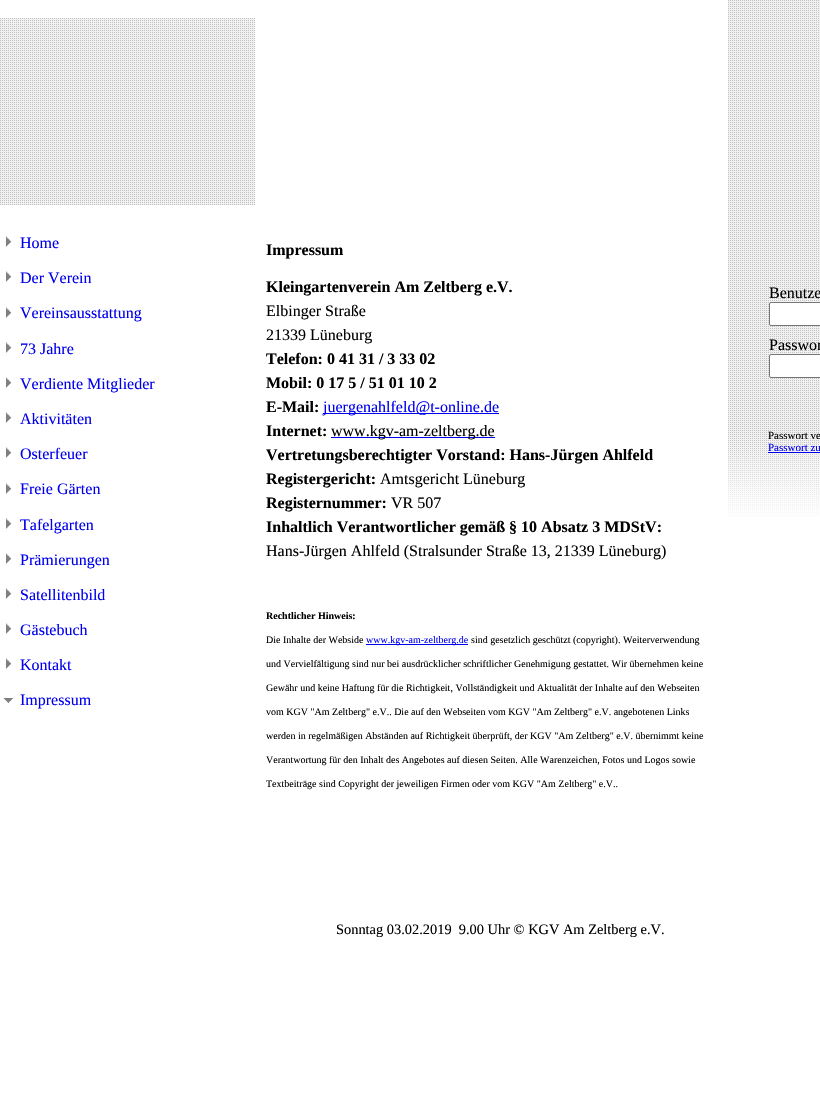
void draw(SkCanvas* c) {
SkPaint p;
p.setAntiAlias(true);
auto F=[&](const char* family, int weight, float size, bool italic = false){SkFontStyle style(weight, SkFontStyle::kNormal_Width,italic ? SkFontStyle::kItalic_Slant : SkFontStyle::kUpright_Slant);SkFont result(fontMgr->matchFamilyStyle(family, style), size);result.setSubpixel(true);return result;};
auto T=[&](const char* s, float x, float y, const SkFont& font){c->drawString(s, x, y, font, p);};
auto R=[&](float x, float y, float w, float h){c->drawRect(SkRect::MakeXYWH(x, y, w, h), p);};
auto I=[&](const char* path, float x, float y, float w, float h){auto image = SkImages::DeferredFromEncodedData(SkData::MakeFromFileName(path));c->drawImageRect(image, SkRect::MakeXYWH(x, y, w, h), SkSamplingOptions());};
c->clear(0xffffffff);
I("1.png",0,0,820,225);
I("2.png",375,225,445,292);
I("3.png",6,236,5,11);
auto f1 = F("Liberation Serif",400,16);
p.setColor(0xff0000ee);
T("Home",20,248,f1);
I("3.png",6,271,5,11);
T("Der Verein",20,283,f1);
I("3.png",6,307,5,11);
T("Vereinsausstattung",20,318,f1);
I("3.png",6,342,5,11);
T("73 Jahre",20,354,f1);
I("3.png",6,377,5,11);
T("Verdiente Mitglieder",20,389,f1);
I("3.png",6,412,5,11);
T("Aktivitäten",20,424,f1);
I("3.png",6,447,5,11);
T("Osterfeuer",20,459,f1);
I("3.png",6,483,5,11);
T("Freie Gärten",20,494,f1);
I("3.png",6,518,5,11);
T("Tafelgarten",20,530,f1);
I("3.png",6,553,5,11);
T("Prämierungen",20,565,f1);
I("3.png",6,588,5,11);
T("Satellitenbild",20,600,f1);
I("3.png",6,623,5,11);
T("Gästebuch",20,635,f1);
I("3.png",6,658,5,11);
T("Kontakt",20,670,f1);
I("4.png",3,698,11,5);
I("5.png",3,698,11,5);
T("Impressum",20,705,f1);
auto f2 = F("Liberation Serif",700,16);
p.setColor(0xff000000);
T("Impressum",266,255,f2);
T("Kleingartenverein Am Zeltberg e.V.",266,292,f2);
T("Elbinger Straße",266,316,f1);
T("21339 Lüneburg",266,340,f1);
T("Telefon: 0 41 31 / 3 33 02",266,364,f2);
T("Mobil: 0 17 5 / 51 01 10 2",266,388,f2);
T("E-Mail:",266,412,f2);
p.setColor(0xff0000ee);
R(323,413,176,1);
T("juergenahlfeld@t-online.de",323,412,f1);
p.setColor(0xff000000);
T("Internet:",266,436,f2);
p.setColor(0xff0000ee);
R(331,437,164,1);
p.setColor(0xff000000);
T("www.kgv-am-zeltberg.de",331,436,f1);
T("Vertretungsberechtigter Vorstand: Hans-Jürgen Ahlfeld",266,460,f2);
T("Registergericht:",266,484,f2);
T("Amtsgericht Lüneburg",380,484,f1);
T("Registernummer:",266,508,f2);
T("VR 507",391,508,f1);
T("Inhaltlich Verantwortlicher gemäß § 10 Absatz 3 MDStV:",266,532,f2);
T("Hans-Jürgen Ahlfeld (Stralsunder Straße 13, 21339 Lüneburg)",266,556,f1);
auto f3 = F("Liberation Serif",700,10);
T("Rechtlicher Hinweis:",266,619,f3);
auto f4 = F("Liberation Serif",400,10);
T("Die Inhalte der Webside",266,643,f4);
p.setColor(0xff0000ee);
R(366,644,102,1);
T("www.kgv-am-zeltberg.de",366,643,f4);
p.setColor(0xff000000);
T("sind gesetzlich geschützt (copyright). Weiterverwendung",471,643,f4);
T("und Vervielfältigung sind nur bei ausdrücklicher schriftlicher Genehmigung gestattet. Wir übernehmen keine",266,667,f4);
T("Gewähr und keine Haftung für die Richtigkeit, Vollständigkeit und Aktualität der Inhalte auf den Webseiten",266,691,f4);
T("vom KGV \"Am Zeltberg\" e.V.. Die auf den Webseiten vom KGV \"Am Zeltberg\" e.V. angebotenen Links",266,715,f4);
T("werden in regelmäßigen Abständen auf Richtigkeit überprüft, der KGV \"Am Zeltberg\" e.V. übernimmt keine",266,739,f4);
T("Verantwortung für den Inhalt des Angebotes auf diesen Seiten. Alle Warenzeichen, Fotos und Logos sowie",266,763,f4);
T("Textbeiträge sind Copyright der jeweiligen Firmen oder vom KGV \"Am Zeltberg\" e.V..",266,787,f4);
T("Benutze",769,298,f1);
p.setColor(0xffffffff);
c->drawRoundRect(SkRect::MakeXYWH(769.5,302.5,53,23),1.5,1.5,p);
p.setStroke(true);
p.setStrokeWidth(1);
p.setColor(0xff767676);
c->drawRoundRect(SkRect::MakeXYWH(769.5,302.5,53,23),1.5,1.5,p);
p.setStroke(false);
p.setColor(0xff000000);
T("Passwor",769,350,f1);
p.setColor(0xffffffff);
c->drawRoundRect(SkRect::MakeXYWH(769.5,354.5,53,23),1.5,1.5,p);
p.setStroke(true);
p.setColor(0xff767676);
c->drawRoundRect(SkRect::MakeXYWH(769.5,354.5,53,23),1.5,1.5,p);
auto f5 = F("Liberation Serif",400,11);
p.setStroke(false);
p.setColor(0xff000000);
T("Passwort ve",768,439,f5);
p.setColor(0xff0000ee);
T("Passwort zu",768,451,f5);
R(768,452,52,1);
auto f6 = F("Liberation Serif",400,14.4);
p.setColor(0xff000000);
T("Sonntag 03.02.2019  9.00 Uhr © KGV Am Zeltberg e.V.",336,934,f6);
}
